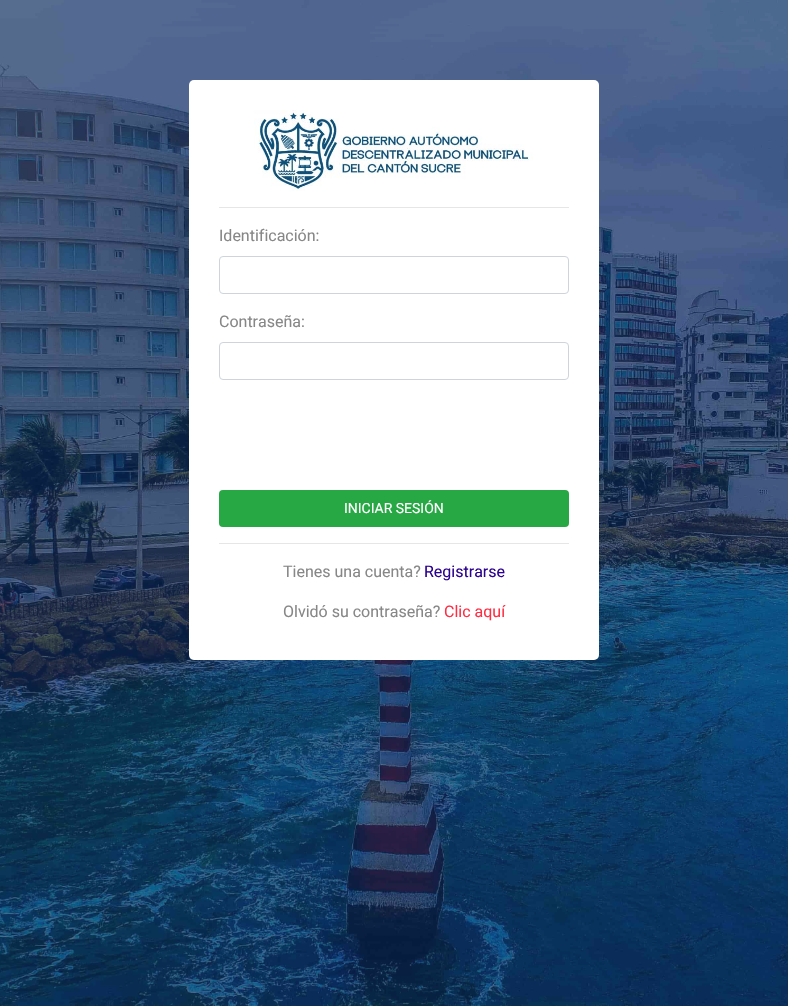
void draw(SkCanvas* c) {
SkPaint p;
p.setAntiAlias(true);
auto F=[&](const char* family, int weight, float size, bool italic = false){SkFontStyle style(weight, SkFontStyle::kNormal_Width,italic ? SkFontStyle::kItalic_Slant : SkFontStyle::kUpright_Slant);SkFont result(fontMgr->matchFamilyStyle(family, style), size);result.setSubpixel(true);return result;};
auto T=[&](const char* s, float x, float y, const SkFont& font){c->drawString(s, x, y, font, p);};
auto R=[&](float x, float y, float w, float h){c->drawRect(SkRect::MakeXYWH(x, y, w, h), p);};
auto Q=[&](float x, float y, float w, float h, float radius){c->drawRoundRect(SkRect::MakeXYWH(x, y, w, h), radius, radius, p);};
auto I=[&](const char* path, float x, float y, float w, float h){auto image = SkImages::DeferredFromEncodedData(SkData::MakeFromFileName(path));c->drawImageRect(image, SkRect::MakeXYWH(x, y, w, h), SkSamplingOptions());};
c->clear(0xffffffff);
I("1.png",0,0,788,1006);
p.setColor(0xffffffff);
Q(189,80,410,580,5);
I("2.png",254,110,279,81);
p.setColor(0xffe6e6e6);
R(219,207,350,1);
auto f1 = F("Roboto",400,16);
p.setColor(0xff878787);
T("Identificación:",219,241,f1);
p.setStroke(true);
p.setStrokeWidth(1);
p.setColor(0xffced4da);
c->drawRoundRect(SkRect::MakeXYWH(219.5,256.5,349,37),3.5,3.5,p);
p.setStroke(false);
p.setColor(0xff878787);
T("Contraseña:",219,327,f1);
p.setStroke(true);
p.setColor(0xffced4da);
c->drawRoundRect(SkRect::MakeXYWH(219.5,342.5,349,37),3.5,3.5,p);
p.setStroke(false);
p.setColor(0xff28a745);
Q(219,490,350,37,4);
auto f2 = F("Roboto",400,14);
p.setColor(0xffffffff);
T("INICIAR SESIÓN",344,513,f2);
p.setColor(0xffe6e6e6);
R(219,543,350,1);
p.setColor(0xff878787);
T("Tienes una cuenta?",283,577,f1);
p.setColor(0xff2d038f);
T("Registrarse",424,577,f1);
p.setColor(0xff878787);
T("Olvidó su contraseña?",283,617,f1);
p.setColor(0xffff2e44);
T("Clic aquí",444,617,f1);
}
